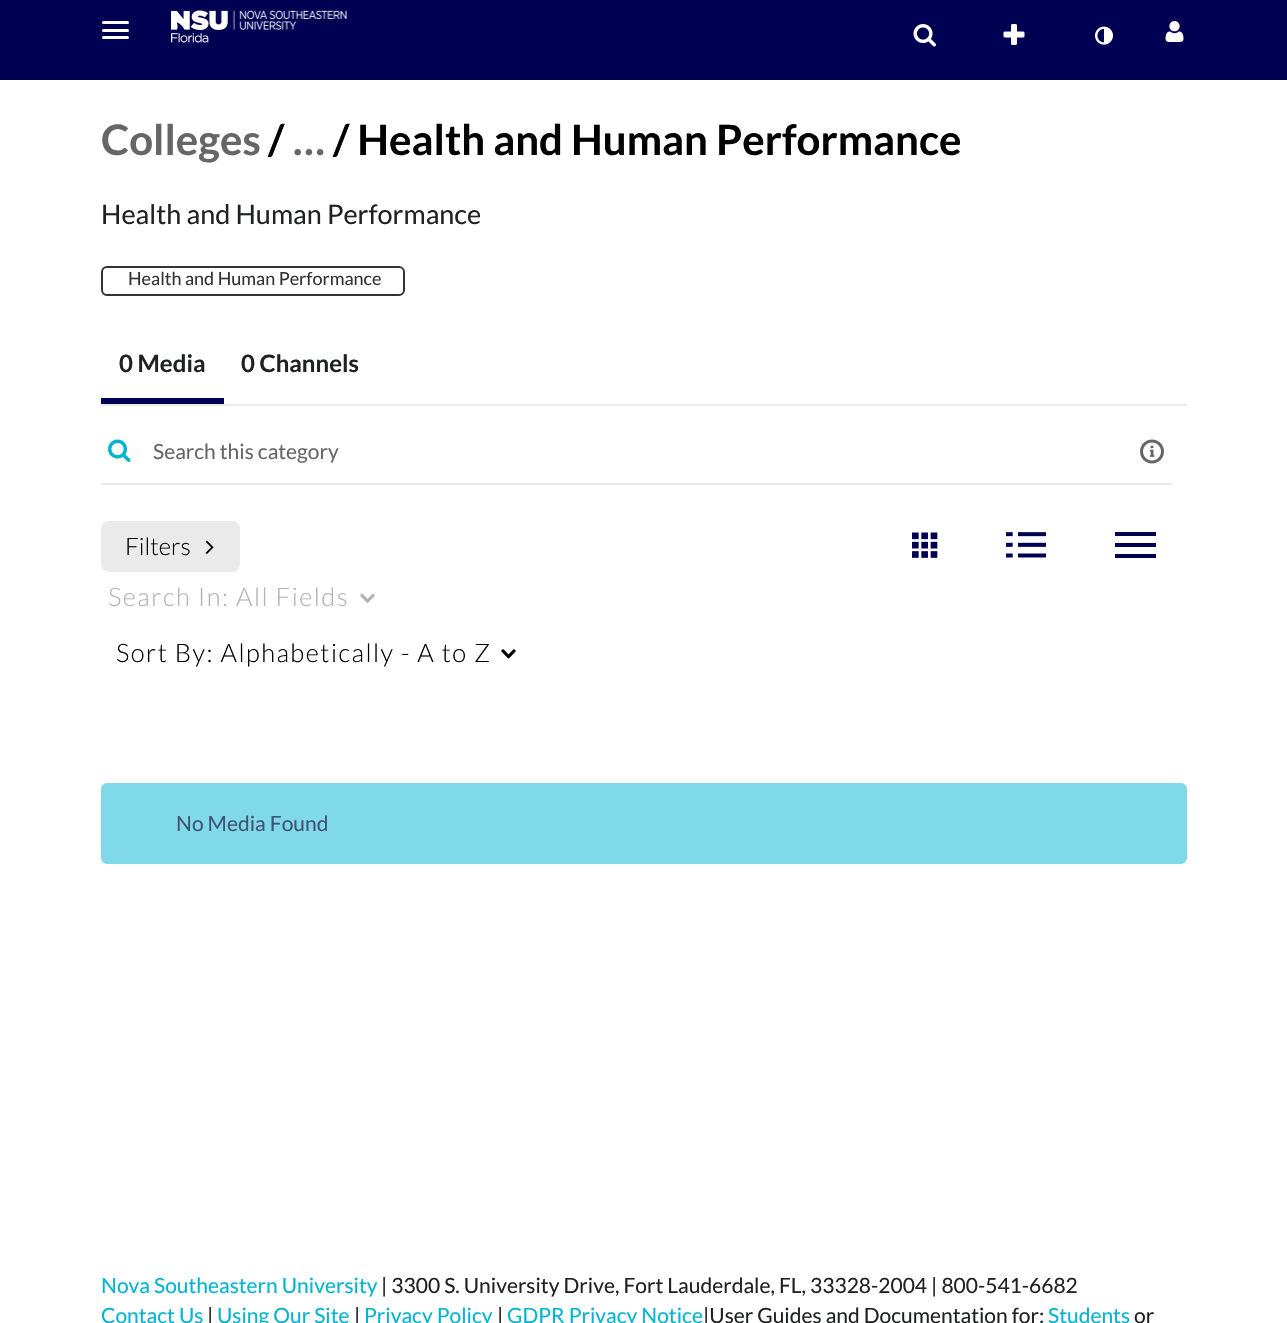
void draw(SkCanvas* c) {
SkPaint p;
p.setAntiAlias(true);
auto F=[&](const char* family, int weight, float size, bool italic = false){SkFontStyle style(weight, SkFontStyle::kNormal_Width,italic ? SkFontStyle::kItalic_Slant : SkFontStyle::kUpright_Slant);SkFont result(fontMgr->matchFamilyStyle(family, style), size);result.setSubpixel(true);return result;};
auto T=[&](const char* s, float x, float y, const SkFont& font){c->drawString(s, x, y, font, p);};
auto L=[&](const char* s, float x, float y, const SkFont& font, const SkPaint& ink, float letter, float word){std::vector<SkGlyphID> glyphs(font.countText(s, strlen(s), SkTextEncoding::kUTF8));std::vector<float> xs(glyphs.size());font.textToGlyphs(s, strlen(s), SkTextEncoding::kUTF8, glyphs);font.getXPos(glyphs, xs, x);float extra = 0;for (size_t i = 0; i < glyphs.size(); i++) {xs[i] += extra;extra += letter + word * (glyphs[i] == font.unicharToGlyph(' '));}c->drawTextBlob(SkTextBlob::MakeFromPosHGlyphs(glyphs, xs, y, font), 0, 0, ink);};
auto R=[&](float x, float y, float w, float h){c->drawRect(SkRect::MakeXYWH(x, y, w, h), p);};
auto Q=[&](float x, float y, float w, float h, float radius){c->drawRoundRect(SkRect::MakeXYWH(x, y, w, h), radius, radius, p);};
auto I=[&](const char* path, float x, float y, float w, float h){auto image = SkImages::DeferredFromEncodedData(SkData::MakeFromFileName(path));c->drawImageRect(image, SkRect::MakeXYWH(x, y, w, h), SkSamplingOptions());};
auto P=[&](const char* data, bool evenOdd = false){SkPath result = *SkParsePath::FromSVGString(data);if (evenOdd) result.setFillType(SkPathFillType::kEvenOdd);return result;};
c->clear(0xffffffff);
p.setColor(0xff010154);
R(0,0,1287,80);
p.setColor(0xffffffff);
Q(102,21,27,3,1.5);
Q(102,29,27,3,1.5);
Q(102,36,27,3,1.5);
I("1.png",171,10,176,33);
I("2.png",913,24,23,23);
I("3.png",1003,24,22,21);
I("4.png",1095,26,18,19);
I("5.png",1165,21,19,21);
auto f1 = F("Lato",700,42);
p.setColor(0xff666666);
T("Colleges",101,155,f1);
p.setColor(0xff000000);
T("/",268,155,f1);
p.setColor(0xff666666);
T("…",293,155,f1);
p.setColor(0xff000000);
T("/ Health and Human Performance",333,155,f1);
auto f2 = F("Lato",400,27);
p.setColor(0xff202121);
T("Health and Human Performance",101,224,f2);
p.setStroke(true);
p.setStrokeWidth(2);
p.setColor(0xff333333);
c->drawRoundRect(SkRect::MakeXYWH(102,267,302,28),5,5,p);
auto f3 = F("Lato",400,18);
p.setStroke(false);
T("Health and Human Performance",128,285,f3);
p.setColor(0xffebebeb);
R(101,404,1086,2);
p.setColor(0xff010154);
R(101,398,123,6);
auto f4 = F("Lato",700,24);
p.setColor(0xff202121);
T("0 Media",119,372,f4);
T("0 Channels",241,372,f4);
p.setColor(0xffebebeb);
R(101,483,1071,2);
I("6.png",108,439,23,23);
auto f5 = F("Lato",400,21);
p.setColor(0xff666666);
T("Search this category",153,459,f5);
I("7.png",1140,439,24,25);
p.setColor(0xffeaeaea);
Q(101,521,139,51,8);
auto f6 = F("Lato",300,24);
p.setColor(0xff000000);
T("Filters",125,555,f6);
I("8.png",205,540,9,14);
auto f7 = F("Lato",300,25.5);
p.setColor(0xffb2b2b2);
L("Search In: All Fields",108,606,f7,p,1.5,0);
I("9.png",360,593,15,10);
p.setColor(0xff000000);
L("Sort By: Alphabetically - A to Z",116,662,f7,p,1.5,0);
I("10.png",501,649,15,10);
I("11.png",912,532,26,26);
I("12.png",1006,532,40,26);
p.setColor(0xff010154);
c->drawPath(P("M1115 532h41v4h-41zm0 11h41v4h-41zm0 11h41v4h-41z"),p);
p.setColor(0xff7fd9e8);
Q(101,783,1086,81,6);
p.setColor(0xff405372);
T("No Media Found",176,831,f5);
p.setColor(0xff00b4d1);
T("Nova Southeastern University",101,1293,f5);
p.setColor(0xff202121);
T("| 3300 S. University Drive, Fort Lauderdale, FL, 33328-2004 | 800-541-6682",381,1293,f5);
p.setColor(0xff00b4d1);
T("Contact Us",101,1323,f5);
p.setColor(0xff202121);
T("|",207,1323,f5);
p.setColor(0xff00b4d1);
T("Using Our Site",217,1323,f5);
p.setColor(0xff202121);
T("|",354,1323,f5);
p.setColor(0xff00b4d1);
T("Privacy Policy",364,1323,f5);
p.setColor(0xff202121);
T("|",497,1323,f5);
p.setColor(0xff00b4d1);
T("GDPR Privacy Notice",507,1323,f5);
p.setColor(0xff202121);
T("|User Guides and Documentation for:",703,1323,f5);
p.setColor(0xff00b4d1);
T("Students",1048,1323,f5);
p.setColor(0xff202121);
T("or",1134,1323,f5);
}
